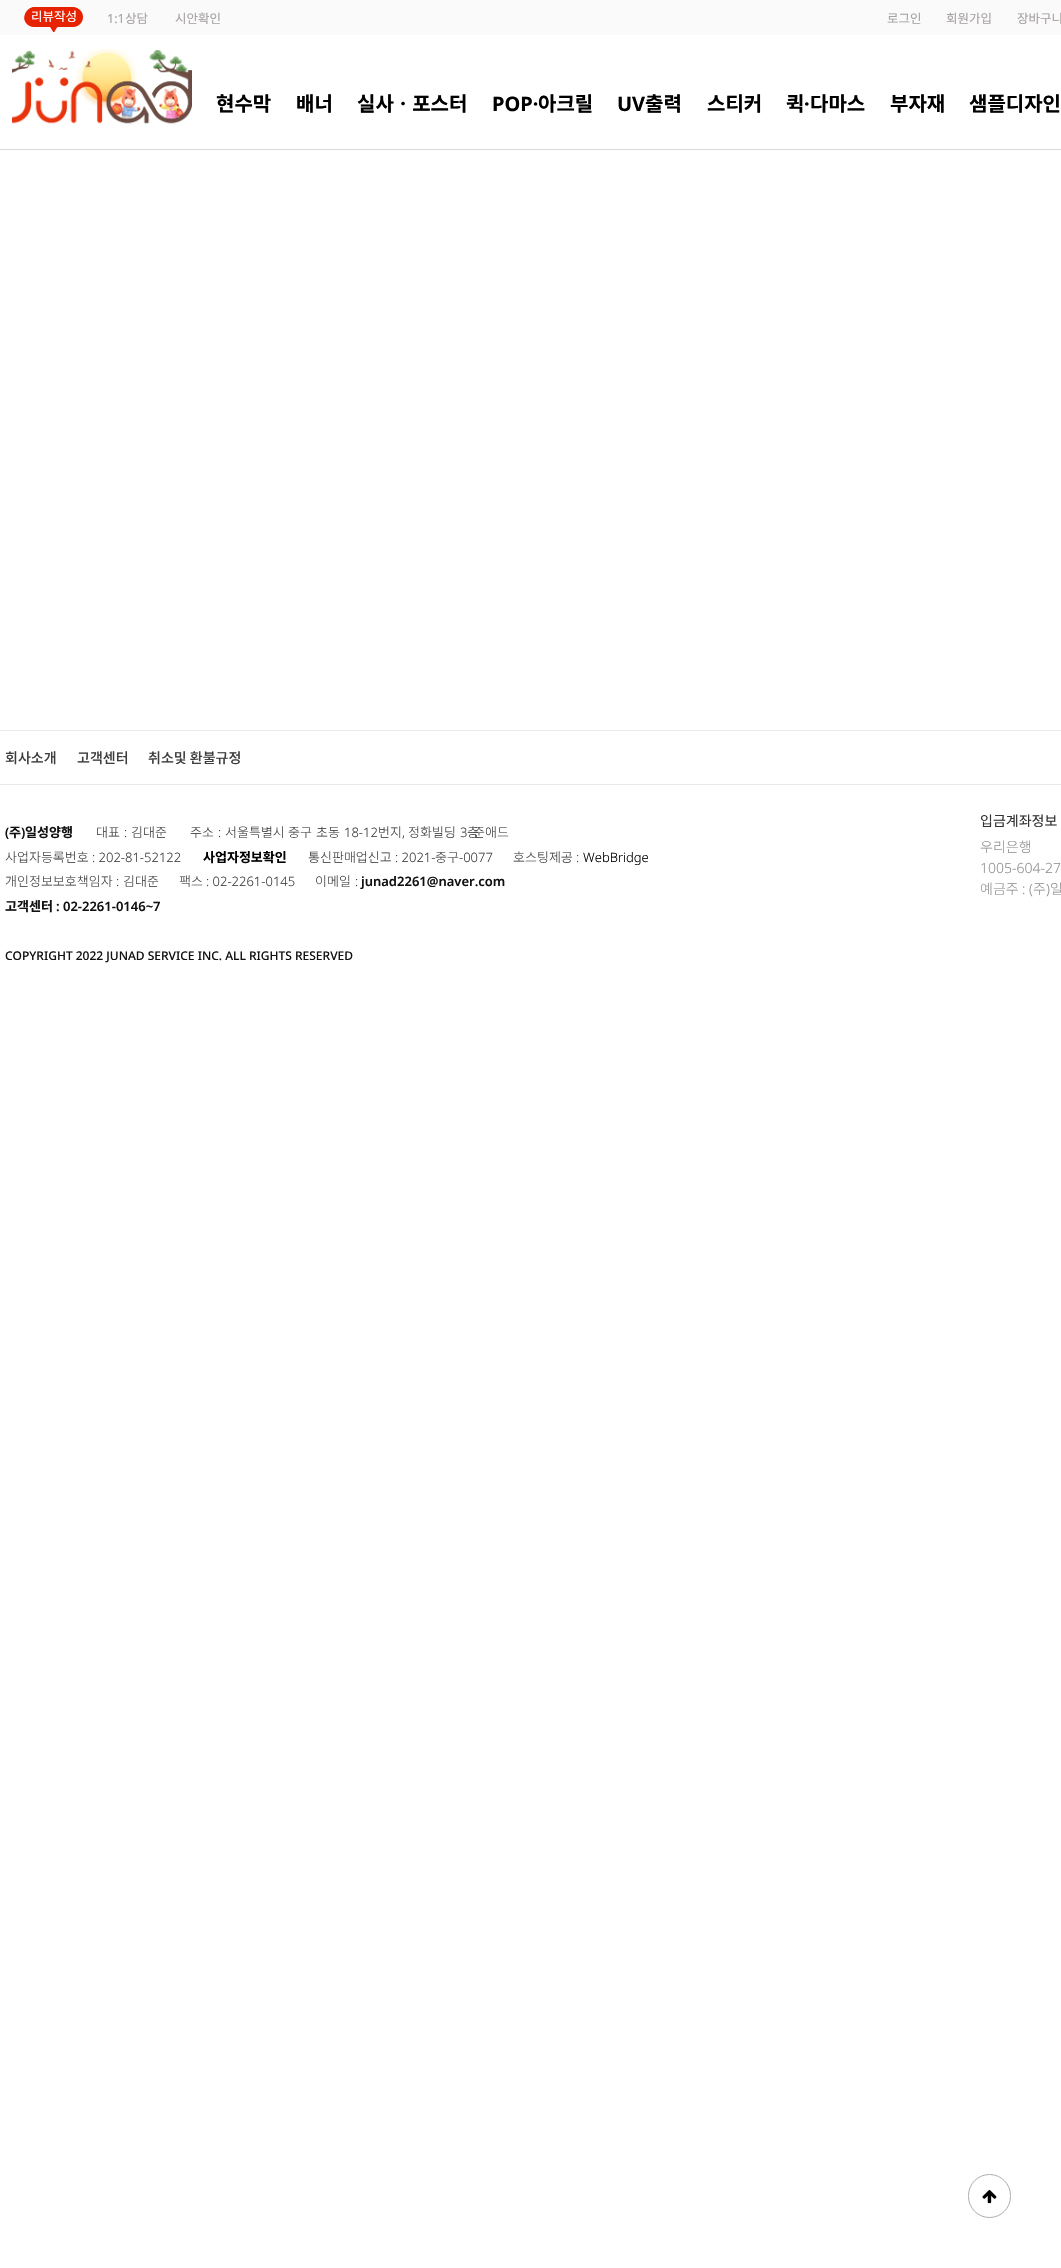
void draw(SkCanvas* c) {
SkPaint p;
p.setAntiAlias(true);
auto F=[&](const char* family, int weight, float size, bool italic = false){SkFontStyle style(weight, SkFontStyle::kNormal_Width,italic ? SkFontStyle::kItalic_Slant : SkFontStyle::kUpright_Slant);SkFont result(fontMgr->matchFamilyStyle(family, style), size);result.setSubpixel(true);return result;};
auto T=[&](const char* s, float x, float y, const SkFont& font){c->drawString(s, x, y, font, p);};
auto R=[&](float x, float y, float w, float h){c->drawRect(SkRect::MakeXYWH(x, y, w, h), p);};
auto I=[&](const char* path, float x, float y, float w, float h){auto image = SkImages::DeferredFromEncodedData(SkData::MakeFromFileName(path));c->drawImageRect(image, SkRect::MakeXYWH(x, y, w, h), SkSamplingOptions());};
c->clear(0xffffffff);
p.setColor(0xfffafafa);
R(0,0,1061,35);
I("1.png",24,7,59,25);
auto f1 = F("Noto Sans KR",400,12.5);
p.setColor(0xffffffff);
T("리뷰작성",31,21,f1);
auto f2 = F("Noto Sans",400,12.5);
p.setColor(0xffa8a3a3);
T("1:1",107,23,f2);
T("상담",125,23,f1);
T("시안확인",175,23,f1);
T("로그인",887,23,f1);
T("회원가입",946,23,f1);
T("장바구니",1017,23,f1);
p.setColor(0xffdadada);
R(0,149,1061,1);
I("2.png",12,49,180,75);
auto f3 = F("Noto Sans KR",700,20);
p.setColor(0xff000000);
T("현수막",216,111,f3);
T("배너",296,111,f3);
T("실사ㆍ포스터",357,111,f3);
auto f4 = F("Noto Sans",700,20);
T("POP·",492,111,f4);
T("아크릴",538,111,f3);
T("UV",617,111,f4);
T("출력",645,111,f3);
T("스티커",707,111,f3);
T("퀵",786,111,f3);
T("·",804,111,f4);
T("다마스",810,111,f3);
T("부자재",890,111,f3);
T("샘플디자인",969,111,f3);
p.setColor(0xffe9e9e9);
R(0,730,1061,1);
R(0,784,1061,1);
auto f5 = F("Noto Sans KR",500,14);
p.setColor(0xff3d3d3d);
T("회사소개",5,763,f5);
T("고객센터",77,763,f5);
T("취소및 환불규정",148,763,f5);
auto f6 = F("Noto Sans KR",700,13);
p.setColor(0xff111111);
T("주",9,837,f6);
T("일성양행",25,837,f6);
auto f7 = F("Noto Sans KR",300,13);
p.setColor(0xff3d3d3d);
T("대표",96,837,f7);
T("김대준",131,837,f7);
T("서울특별시",225,837,f7);
T("중구",288,837,f7);
T("초동",316,837,f7);
T("번지",378,837,f7);
T("정화빌딩",408,837,f7);
T("층",467,837,f7);
auto f8 = F("Noto Sans",600,13);
p.setColor(0xff111111);
T("(",5,837,f8);
T(")",21,837,f8);
auto f9 = F("Noto Sans",300,13);
p.setColor(0xff3d3d3d);
T(":",124,837,f9);
T("주소",190,837,f7);
T(":",218,837,f9);
T("18-12",344,837,f9);
T(",",402,837,f9);
T("3",460,837,f9);
T("준애드",473,837,f7);
T("사업자등록번호",5,862,f7);
T(": 202-81-52122",92,862,f9);
p.setColor(0xff000000);
T("사업자정보확인",203,862,f6);
p.setColor(0xff3d3d3d);
T("통신판매업신고",308,862,f7);
T(": 2021-",395,862,f9);
T("중구",435,862,f7);
T("-0077",459,862,f9);
T("호스팅제공",513,862,f7);
T(":",576,862,f9);
p.setColor(0xff000000);
T("WebBridge",583,862,f9);
p.setColor(0xff3d3d3d);
T("개인정보보호책임자",5,886,f7);
T(":",116,886,f9);
T("김대준",123,886,f7);
T("팩스",179,886,f7);
T(": 02-2261-0145",206,886,f9);
T("이메일",315,886,f7);
T(":",355,886,f9);
p.setColor(0xff111111);
T("junad2261@naver.com",361,886,f8);
T("고객센터",5,911,f6);
T(": 02-2261-0146~7",56,911,f8);
auto f10 = F("Noto Sans",500,12);
T("COPYRIGHT 2022 JUNAD SERVICE INC. ALL RIGHTS RESERVED",5,960,f10);
auto f11 = F("Noto Sans KR",400,14);
p.setColor(0xff333333);
T("입금계좌정보",980,826,f11);
auto f12 = F("Noto Sans KR",300,14);
p.setColor(0xff8f918f);
T("우리은행",980,852,f12);
auto f13 = F("Noto Sans",300,14);
T("1005-604-27",980,873,f13);
T("예금주",980,894,f12);
T(": (",1022,894,f13);
T("주",1033,894,f12);
T(")",1046,894,f13);
T("일",1050,894,f12);
p.setStroke(true);
p.setStrokeWidth(1);
p.setColor(0xffadadad);
c->drawRoundRect(SkRect::MakeXYWH(968.5,2174.5,42,43),21,21,p);
I("3.png",982,2190,15,14);
}
